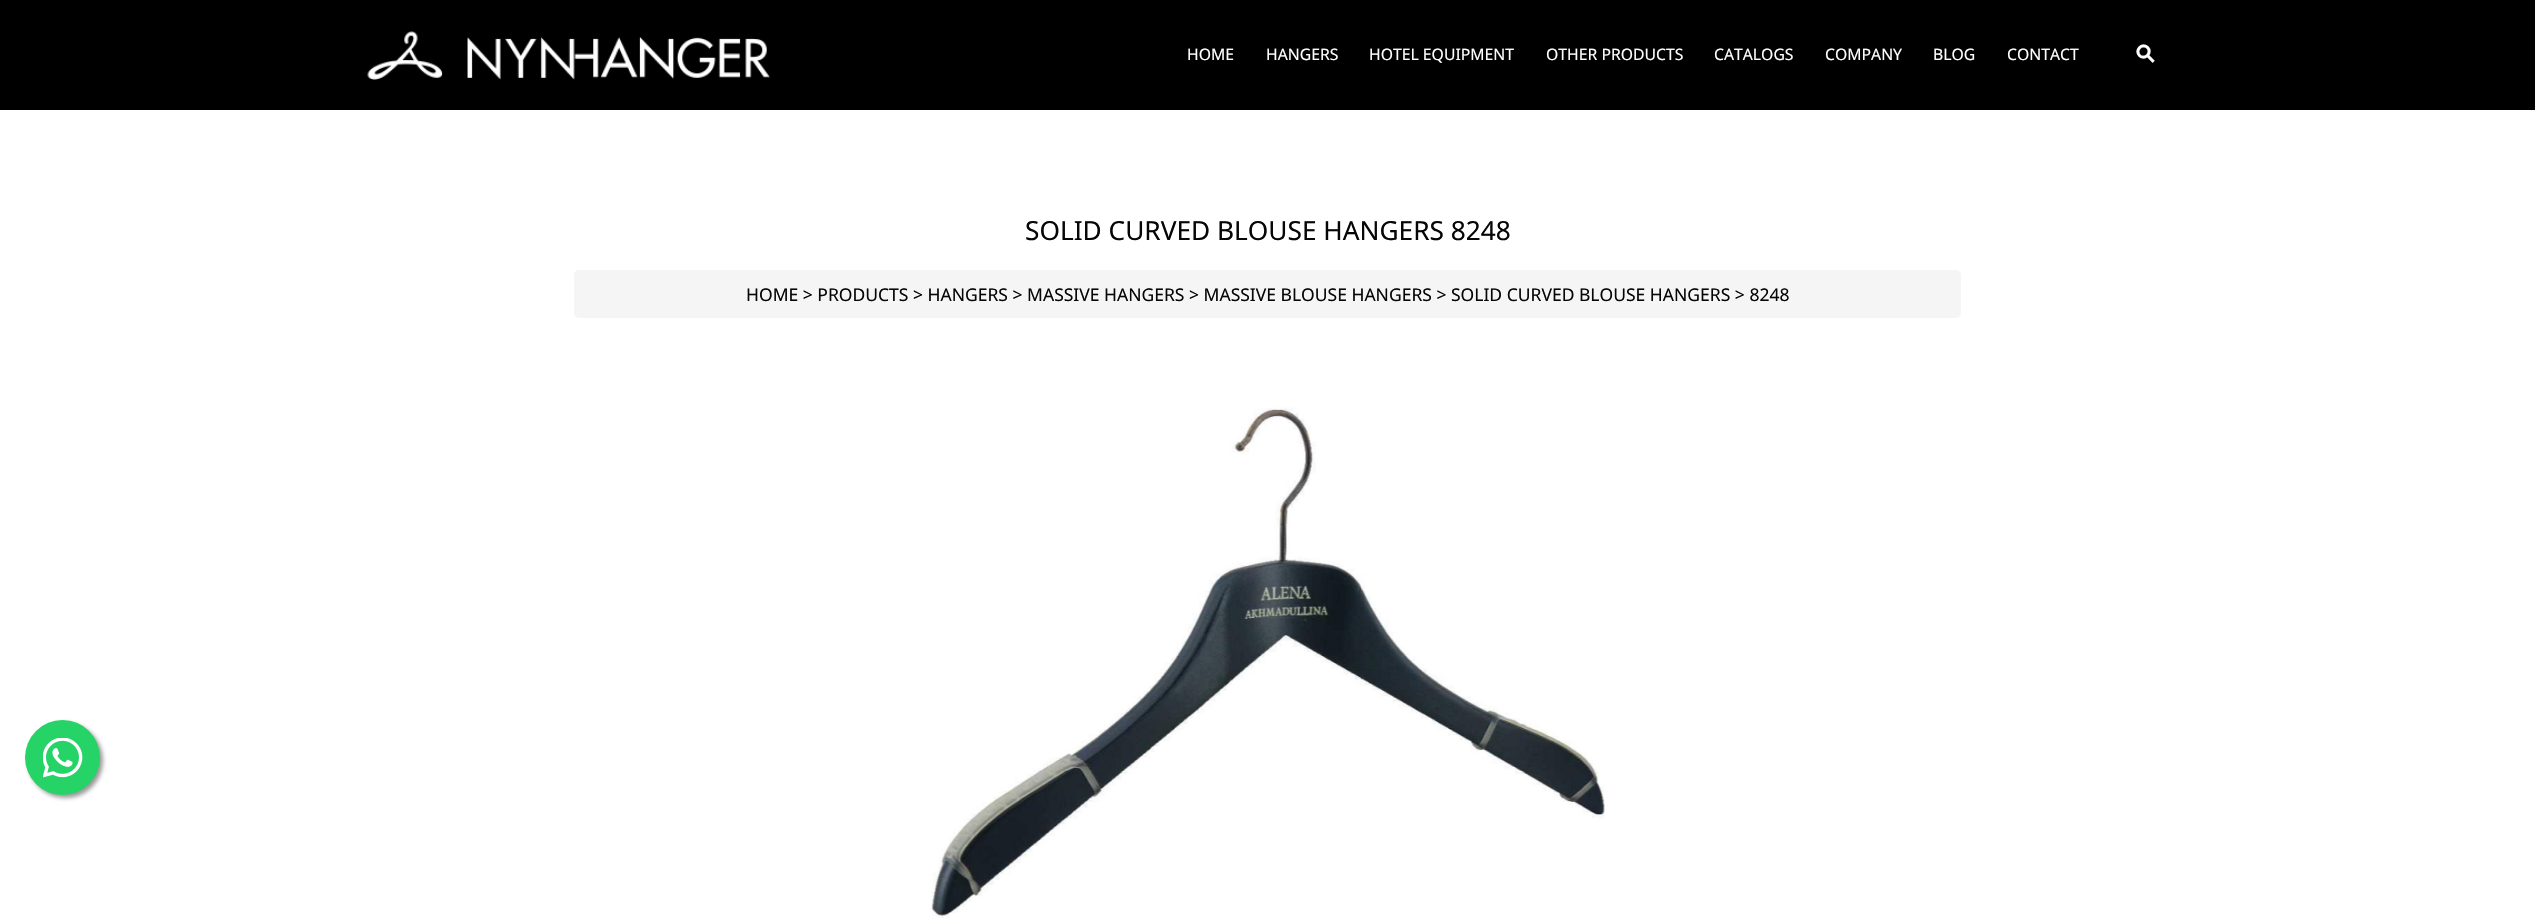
void draw(SkCanvas* c) {
SkPaint p;
p.setAntiAlias(true);
auto F=[&](const char* family, int weight, float size, bool italic = false){SkFontStyle style(weight, SkFontStyle::kNormal_Width,italic ? SkFontStyle::kItalic_Slant : SkFontStyle::kUpright_Slant);SkFont result(fontMgr->matchFamilyStyle(family, style), size);result.setSubpixel(true);return result;};
auto T=[&](const char* s, float x, float y, const SkFont& font){c->drawString(s, x, y, font, p);};
auto R=[&](float x, float y, float w, float h){c->drawRect(SkRect::MakeXYWH(x, y, w, h), p);};
auto Q=[&](float x, float y, float w, float h, float radius){c->drawRoundRect(SkRect::MakeXYWH(x, y, w, h), radius, radius, p);};
auto I=[&](const char* path, float x, float y, float w, float h){auto image = SkImages::DeferredFromEncodedData(SkData::MakeFromFileName(path));c->drawImageRect(image, SkRect::MakeXYWH(x, y, w, h), SkSamplingOptions());};
c->clear(0xffffffff);
p.setColor(0xff000000);
R(0,0,2535,110);
I("1.png",367,31,403,49);
auto f1 = F("Noto Sans",400,15.75);
p.setColor(0xffffffff);
T("HOME",1187,60,f1);
T("HANGERS",1266,60,f1);
T("HOTEL EQUIPMENT",1369,60,f1);
T("OTHER PRODUCTS",1546,60,f1);
T("CATALOGS",1714,60,f1);
T("COMPANY",1825,60,f1);
T("BLOG",1933,60,f1);
T("CONTACT",2007,60,f1);
auto f2 = F("DejaVu Sans",700,24);
c->save();
c->rotate(-45,2145,66);
T("⚲",2145,66,f2);
c->restore();
auto f3 = F("Noto Sans",400,26.25);
p.setColor(0xff060606);
T("SOLID CURVED BLOUSE HANGERS 8248",1025,240,f3);
p.setColor(0xfff5f5f5);
Q(574,270,1387,48,5);
auto f4 = F("Noto Sans",400,17.5);
p.setColor(0xff060606);
T("HOME > PRODUCTS > HANGERS > MASSIVE HANGERS > MASSIVE BLOUSE HANGERS > SOLID CURVED BLOUSE HANGERS > 8248",746,301,f4);
I("2.png",931,407,674,512);
p.setColor(0xff999999);
p.setMaskFilter(SkMaskFilter::MakeBlur(kNormal_SkBlurStyle, 2));
c->drawRoundRect(SkRect::MakeXYWH(28,723,75,75),37.5,37.5,p);
p.setMaskFilter(nullptr);
p.setColor(0xff25d366);
c->drawCircle(62.5,757.5,37.5,p);
I("3.png",43,738,40,40);
}
